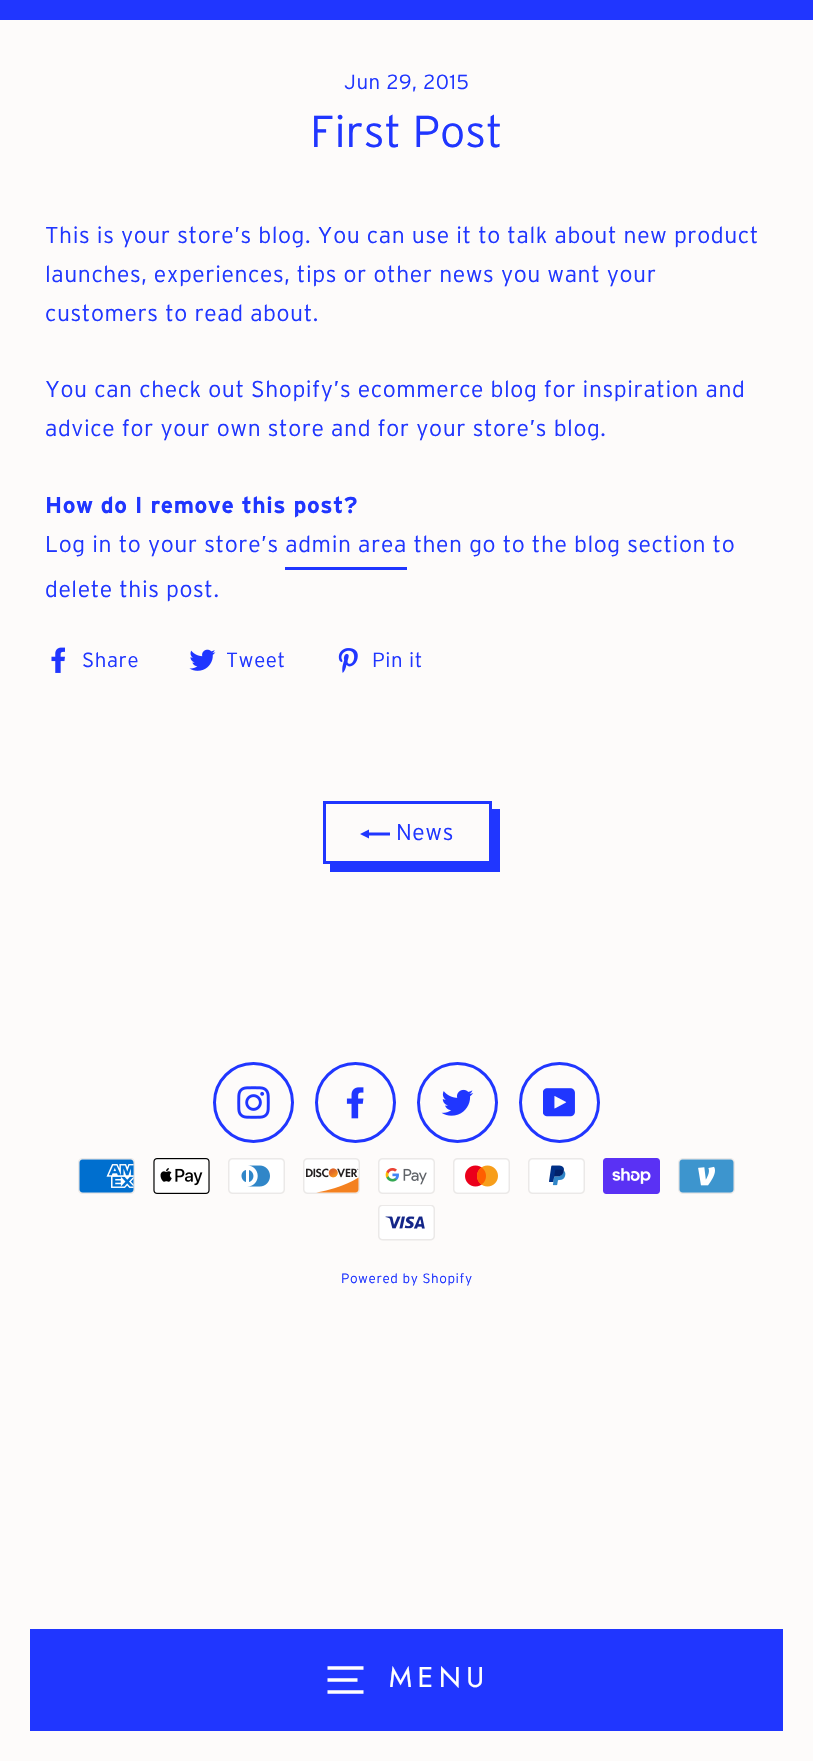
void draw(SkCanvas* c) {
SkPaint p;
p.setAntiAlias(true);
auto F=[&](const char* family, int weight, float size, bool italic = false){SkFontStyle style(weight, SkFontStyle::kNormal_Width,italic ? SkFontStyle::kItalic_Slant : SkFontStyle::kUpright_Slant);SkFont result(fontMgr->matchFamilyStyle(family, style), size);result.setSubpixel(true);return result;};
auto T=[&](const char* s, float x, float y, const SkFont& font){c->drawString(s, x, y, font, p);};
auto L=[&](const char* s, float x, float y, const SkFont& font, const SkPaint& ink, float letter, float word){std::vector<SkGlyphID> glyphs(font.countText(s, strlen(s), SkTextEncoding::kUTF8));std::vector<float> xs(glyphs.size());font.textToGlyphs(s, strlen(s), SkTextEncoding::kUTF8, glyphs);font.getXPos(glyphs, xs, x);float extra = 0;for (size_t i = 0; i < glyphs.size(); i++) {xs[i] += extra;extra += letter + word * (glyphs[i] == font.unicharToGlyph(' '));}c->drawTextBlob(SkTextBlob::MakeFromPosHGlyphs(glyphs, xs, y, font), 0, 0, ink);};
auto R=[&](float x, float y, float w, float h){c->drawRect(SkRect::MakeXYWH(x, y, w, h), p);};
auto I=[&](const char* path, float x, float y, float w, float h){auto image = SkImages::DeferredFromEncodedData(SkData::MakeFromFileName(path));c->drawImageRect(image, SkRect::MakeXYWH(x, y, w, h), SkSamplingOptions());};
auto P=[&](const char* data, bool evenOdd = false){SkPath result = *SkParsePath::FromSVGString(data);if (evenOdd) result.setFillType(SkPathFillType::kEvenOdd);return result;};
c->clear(0xfffdfbfa);
auto f1 = F("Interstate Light",300,20.5);
p.setColor(0xff2036ff);
L("Jun 29, 2015",344,89,f1,p,.57,0);
auto f2 = F("Interstate Light",300,44.5);
T("First Post",310,147,f2);
auto f3 = F("Interstate Light",300,22.95);
L("This is your store’s blog. You can use it to talk about new product",45,243,f3,p,.57,0);
L("launches, experiences, tips or other news you want your",45,282,f3,p,.57,0);
L("customers to read about.",45,321,f3,p,.57,0);
L("You can check out Shopify’s ecommerce blog for inspiration and",45,397,f3,p,.57,0);
L("advice for your own store and for your store’s blog.",45,436,f3,p,.57,0);
auto f4 = F("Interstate",700,22.95);
L("How do I remove this post?",45,513,f4,p,.57,0);
L("Log in to your store’s admin area then go to the blog section to",45,552,f3,p,.57,0);
R(285,567,122,3);
L("delete this post.",45,597,f3,p,.57,0);
I("1.png",51,647,14,26);
L("Share",82,667,f1,p,.57,0);
I("2.png",189,649,27,22);
L("Tweet",226,667,f1,p,.57,0);
I("3.png",338,648,20,25);
L("Pin it",372,667,f1,p,.57,0);
c->drawPath(P("M330 864v8h170v-63h-8v55z"),p);
p.setStroke(true);
p.setStrokeWidth(3);
c->drawRect(SkRect::MakeXYWH(324.5,802.5,166,60),p);
p.setStroke(false);
c->drawPath(P("M390 832.5v3h-21v3l-9-4.5l9-4.5v3z"),p);
L("News",396,840,f3,p,.57,0);
p.setStroke(true);
c->drawCircle(253.5,1102.5,39,p);
I("4.png",237,1086,33,33);
c->drawCircle(355.5,1102.5,39,p);
I("5.png",346,1087,18,32);
c->drawCircle(457.5,1102.5,39,p);
I("6.png",441,1089,33,27);
c->drawCircle(559.5,1102.5,39,p);
I("7.png",543,1088,32,29);
I("8.png",78,1158,57,36);
I("9.png",153,1158,57,36);
I("10.png",228,1158,57,36);
I("11.png",303,1158,57,36);
I("12.png",378,1158,57,36);
I("13.png",453,1158,57,36);
I("14.png",528,1158,57,36);
I("15.png",603,1158,57,36);
I("16.png",678,1158,57,36);
I("17.png",378,1205,57,36);
auto f5 = F("Interstate Light",300,13.5);
p.setStroke(false);
L("Powered by Shopify",341,1283,f5,p,.57,0);
R(0,0,813,20);
R(30,1629,753,102);
p.setStroke(true);
p.setStrokeWidth(3.5);
p.setColor(0xffffffff);
c->drawPath(P("M327.5 1668h36m-36 12h30m-30 12h36"),p);
auto f6 = F("Jost",400,28.5);
p.setStroke(false);
L("MENU",389,1687,f6,p,5.5,0);
}
